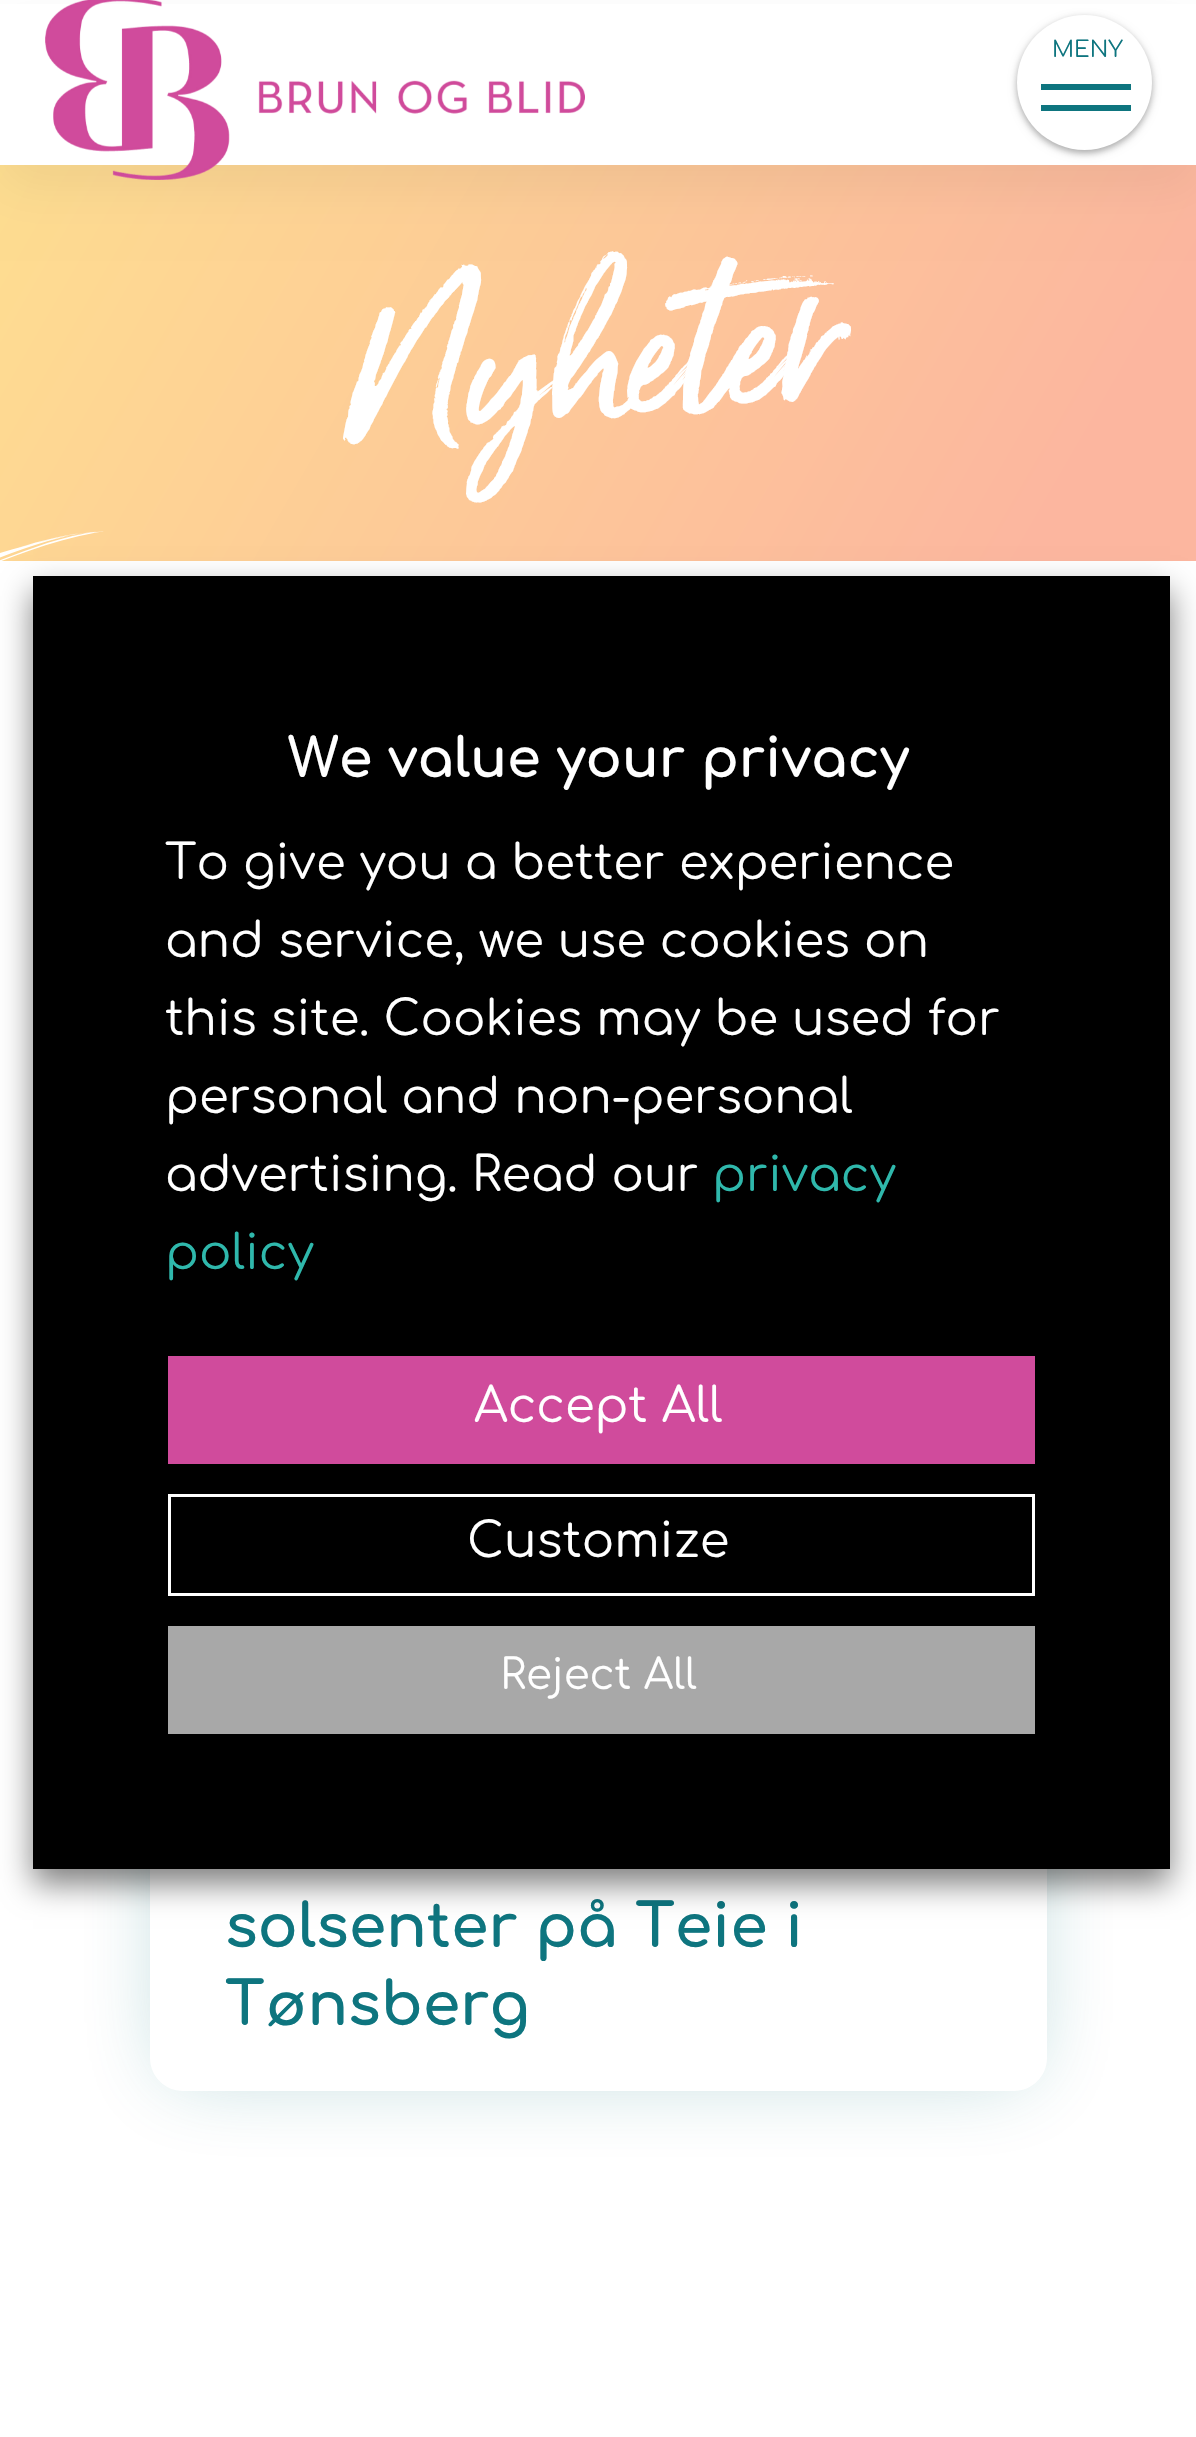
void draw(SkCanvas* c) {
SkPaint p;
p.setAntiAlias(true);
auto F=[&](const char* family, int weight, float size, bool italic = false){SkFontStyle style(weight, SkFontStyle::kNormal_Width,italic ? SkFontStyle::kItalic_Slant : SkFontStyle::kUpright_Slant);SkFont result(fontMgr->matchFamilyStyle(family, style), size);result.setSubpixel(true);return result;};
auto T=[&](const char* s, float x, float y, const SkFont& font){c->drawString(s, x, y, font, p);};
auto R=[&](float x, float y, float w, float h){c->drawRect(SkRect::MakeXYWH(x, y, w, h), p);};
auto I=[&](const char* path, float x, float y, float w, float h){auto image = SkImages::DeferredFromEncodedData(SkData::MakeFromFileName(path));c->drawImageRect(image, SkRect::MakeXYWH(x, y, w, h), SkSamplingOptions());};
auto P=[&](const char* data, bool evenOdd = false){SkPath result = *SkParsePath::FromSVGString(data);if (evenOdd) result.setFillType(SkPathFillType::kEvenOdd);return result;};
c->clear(0xffffffff);
{
const SkColor colors[] = {0xffffe78d,0xfffcb69f};
const float stops[] = {0,.9};
const SkPoint ends[] = {{-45,-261}, {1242,483}};
p.setShader(SkGradientShader::MakeLinear(ends, colors, stops, 2, SkTileMode::kClamp));
p.setAlpha(255);
}
R(0,165,1196,396);
p.setShader(nullptr);
p.setColor(0x0d000000);
p.setMaskFilter(SkMaskFilter::MakeBlur(kNormal_SkBlurStyle, 24));
c->drawRect(SkRect::MakeXYWH(0,24,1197,165),p);
p.setMaskFilter(nullptr);
p.setColor(0xffffffff);
R(0,4,1196,161);
I("1.png",45,0,540,180);
p.setColor(0x3d000000);
p.setMaskFilter(SkMaskFilter::MakeBlur(kNormal_SkBlurStyle, 3));
c->drawRoundRect(SkRect::MakeXYWH(1017,18,135,135),67.5,67.5,p);
p.setMaskFilter(nullptr);
p.setColor(0x1f000000);
p.setMaskFilter(SkMaskFilter::MakeBlur(kNormal_SkBlurStyle, 4.5));
c->drawRoundRect(SkRect::MakeXYWH(1017,18,135,135),67.5,67.5,p);
p.setMaskFilter(nullptr);
p.setColor(0xffffffff);
c->drawCircle(1084.5,82.5,67.5,p);
auto f1 = F("Comfortaa",400,22.5);
p.setColor(0xff0e757f);
T("MENY",1052,57,f1);
R(1041,84,90,6);
R(1041,105,90,6);
auto f2 = F("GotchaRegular",400,202);
p.setColor(0xffffffff);
c->save();
c->rotate(-5,350,438);
T("Nyheter",350,438,f2);
c->restore();
I("2.png",0,531,104,30);
c->save();
c->clipPath(P("M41 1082h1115v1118h-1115zm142 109h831c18 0 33 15 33 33v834c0 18-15 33-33 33h-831c-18 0-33-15-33-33v-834c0-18 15-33 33-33z",true),true);
p.setColor(0x4d0e767f);
p.setMaskFilter(SkMaskFilter::MakeBlur(kNormal_SkBlurStyle, 42));
c->drawRoundRect(SkRect::MakeXYWH(168,1209,861,864),15,15,p);
p.setMaskFilter(nullptr);
c->restore();
auto f3 = F("Comfortaa",700,60);
p.setColor(0xff0e757f);
T("solsenter på Teie i",225,1947,f3);
T("Tønsberg",225,2025,f3);
p.setColor(0x80000000);
p.setMaskFilter(SkMaskFilter::MakeBlur(kNormal_SkBlurStyle, 15));
c->drawRect(SkRect::MakeXYWH(33,591,1137,1293),p);
p.setMaskFilter(nullptr);
p.setColor(0xff000000);
R(33,576,1137,1293);
auto f4 = F("Comfortaa",700,54);
p.setColor(0xffffffff);
T("We value your privacy",288,777,f4);
auto f5 = F("Comfortaa",400,48);
T("To give you a better experience",165,879,f5);
T("and service, we use cookies on",165,957,f5);
T("this site. Cookies may be used for",165,1035,f5);
T("personal and non-personal",165,1113,f5);
T("advertising. Read our",165,1191,f5);
p.setColor(0xff2fb8ac);
T("privacy",712,1191,f5);
T("policy",165,1269,f5);
p.setColor(0xffd04b9c);
R(168,1356,867,108);
p.setColor(0xffffffff);
T("Accept All",474,1422,f5);
p.setStroke(true);
p.setStrokeWidth(3);
c->drawRect(SkRect::MakeXYWH(169.5,1495.5,864,99),p);
p.setStroke(false);
T("Customize",467,1557,f5);
p.setColor(0xffa8a8a8);
R(168,1626,867,108);
auto f6 = F("Comfortaa",400,42);
p.setColor(0xffffffff);
T("Reject All",500,1689,f6);
}
